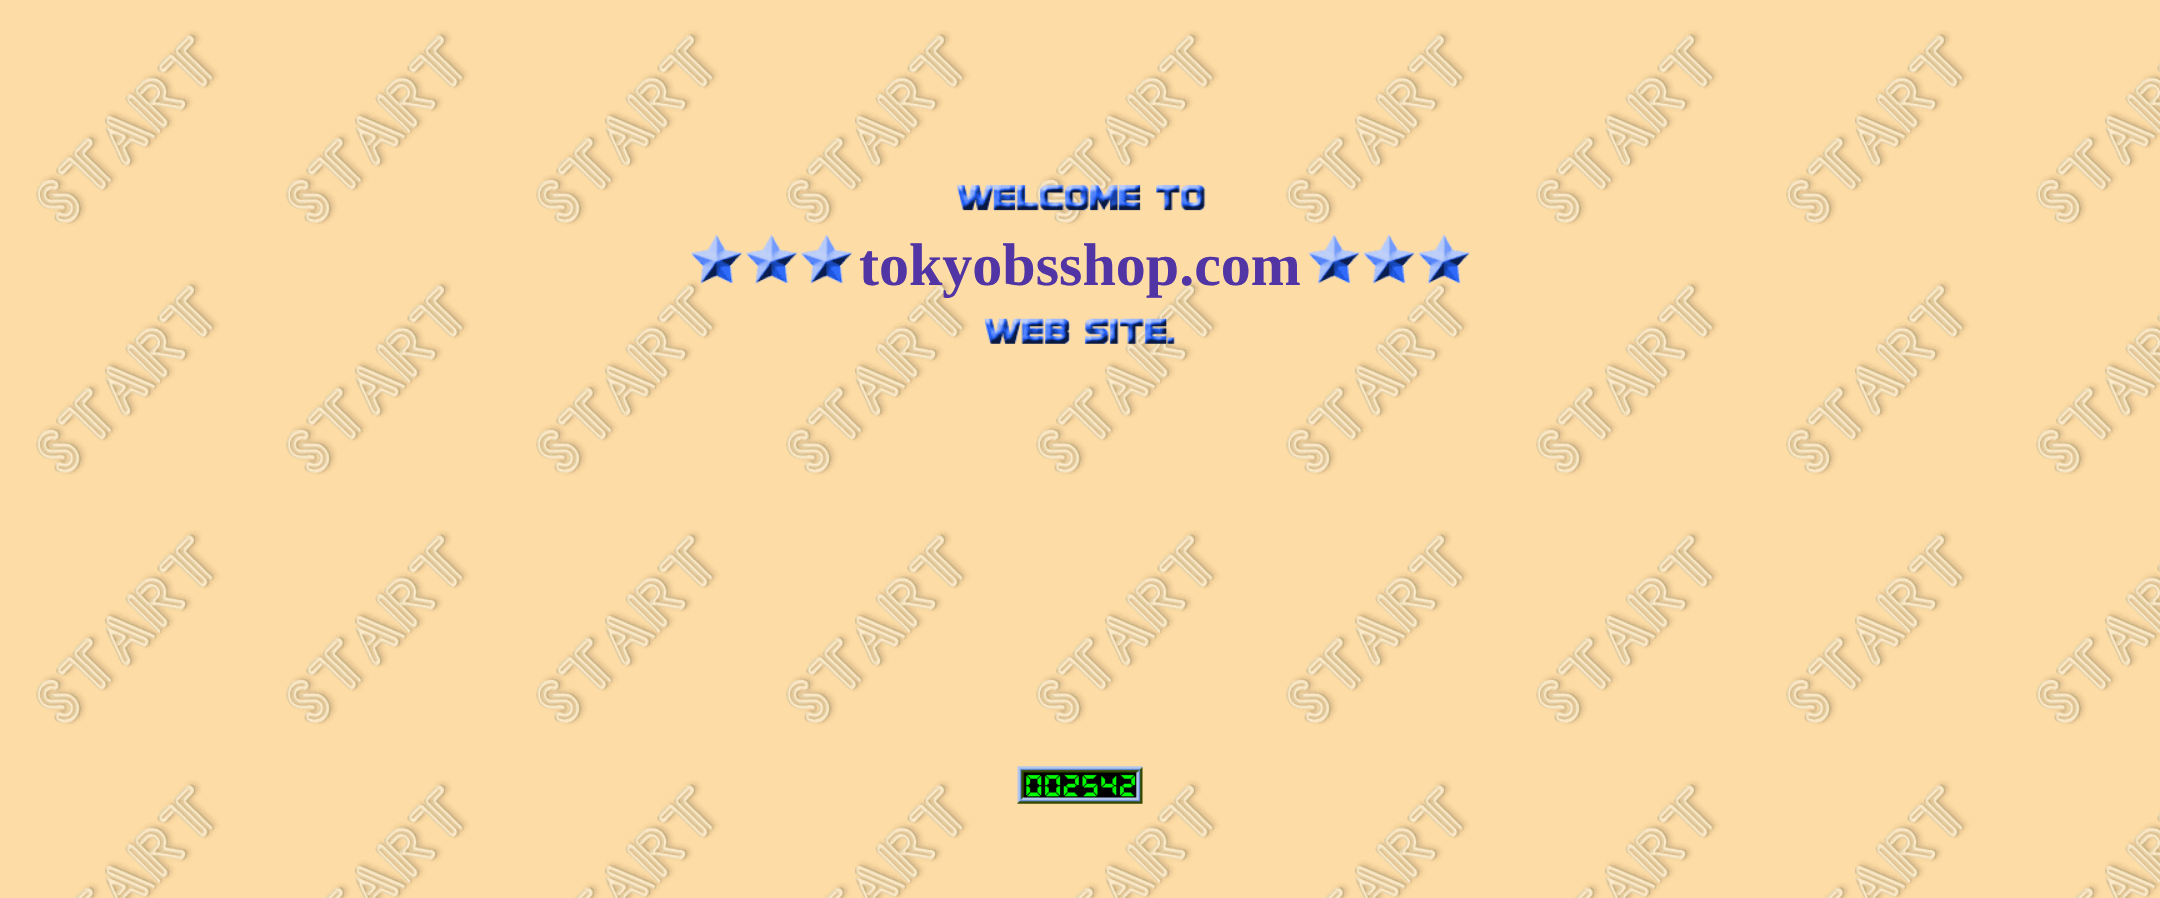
void draw(SkCanvas* c) {
SkPaint p;
p.setAntiAlias(true);
auto F=[&](const char* family, int weight, float size, bool italic = false){SkFontStyle style(weight, SkFontStyle::kNormal_Width,italic ? SkFontStyle::kItalic_Slant : SkFontStyle::kUpright_Slant);SkFont result(fontMgr->matchFamilyStyle(family, style), size);result.setSubpixel(true);return result;};
auto T=[&](const char* s, float x, float y, const SkFont& font){c->drawString(s, x, y, font, p);};
auto I=[&](const char* path, float x, float y, float w, float h){auto image = SkImages::DeferredFromEncodedData(SkData::MakeFromFileName(path));c->drawImageRect(image, SkRect::MakeXYWH(x, y, w, h), SkSamplingOptions());};
c->clear(0xffffffff);
I("1.png",0,0,2160,898);
I("2.png",956,184,250,27);
I("3.png",691,234,52,50);
I("4.png",746,234,52,50);
I("5.png",801,234,52,50);
auto f1 = F("Liberation Serif",700,60);
p.setColor(0xff5235a5);
T("tokyobsshop.com",859,285,f1);
I("6.png",1308,234,52,50);
I("6.png",1363,234,52,50);
I("7.png",1418,234,52,50);
I("8.png",983,318,193,26);
I("9.png",1017,766,126,38);
}
